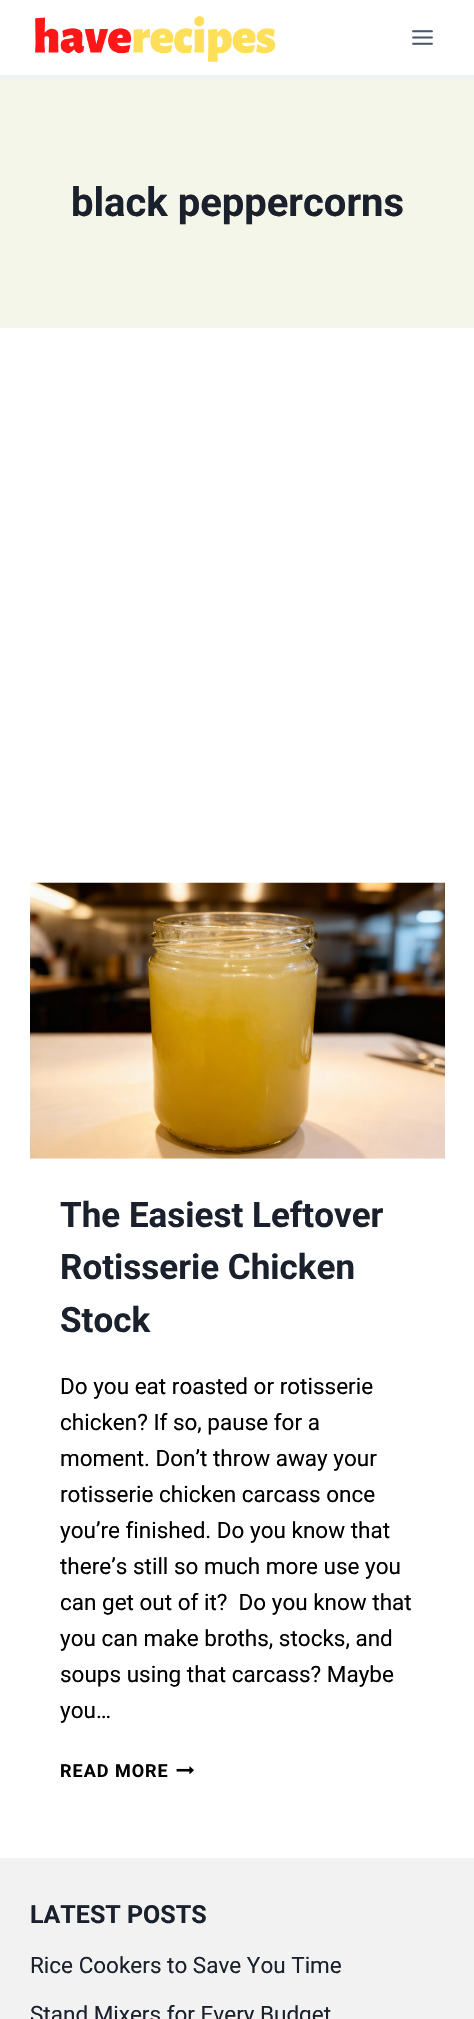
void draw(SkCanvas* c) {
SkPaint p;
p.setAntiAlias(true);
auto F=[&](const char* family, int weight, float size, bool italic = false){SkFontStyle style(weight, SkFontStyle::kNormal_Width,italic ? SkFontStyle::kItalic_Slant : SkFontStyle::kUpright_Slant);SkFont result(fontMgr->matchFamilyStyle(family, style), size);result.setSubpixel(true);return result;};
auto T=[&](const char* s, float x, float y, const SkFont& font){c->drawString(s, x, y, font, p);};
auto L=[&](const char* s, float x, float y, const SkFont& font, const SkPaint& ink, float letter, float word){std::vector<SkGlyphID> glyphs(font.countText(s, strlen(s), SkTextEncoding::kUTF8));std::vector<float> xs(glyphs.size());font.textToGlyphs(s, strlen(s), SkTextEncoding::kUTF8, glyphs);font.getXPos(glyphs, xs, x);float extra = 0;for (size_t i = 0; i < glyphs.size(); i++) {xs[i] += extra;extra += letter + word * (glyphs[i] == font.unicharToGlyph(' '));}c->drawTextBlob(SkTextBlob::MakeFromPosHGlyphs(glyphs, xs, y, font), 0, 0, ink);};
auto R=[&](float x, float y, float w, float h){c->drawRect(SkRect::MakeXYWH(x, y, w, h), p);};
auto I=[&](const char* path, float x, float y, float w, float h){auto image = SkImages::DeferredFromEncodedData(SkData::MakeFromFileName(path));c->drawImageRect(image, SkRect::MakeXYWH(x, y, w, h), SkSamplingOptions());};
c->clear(0xffffffff);
p.setColor(0xffedf2f7);
R(0,75,474,3);
I("1.png",35,16,241,46);
I("2.png",412,30,21,15);
p.setColor(0xfff5f6ea);
R(0,78,474,250);
auto f1 = F("Roboto",700,40);
p.setColor(0xff1a202c);
T("black peppercorns",71,216,f1);
I("3.png",30,882,415,277);
auto f2 = F("Roboto",700,35);
T("The Easiest Leftover",60,1227,f2);
T("Rotisserie Chicken",60,1279,f2);
T("Stock",60,1332,f2);
auto f3 = F("Roboto",400,22.5);
p.setColor(0xff000000);
T("Do you eat roasted or rotisserie",60,1394,f3);
T("chicken? If so, pause for a",60,1430,f3);
T("moment. Don’t throw away your",60,1466,f3);
T("rotisserie chicken carcass once",60,1502,f3);
T("you’re finished. Do you know that",60,1538,f3);
T("there’s still so much more use you",60,1574,f3);
T("can get out of it?  Do you know that",60,1610,f3);
T("you can make broths, stocks, and",60,1646,f3);
T("soups using that carcass? Maybe",60,1682,f3);
T("you…",60,1718,f3);
auto f4 = F("Roboto",700,18);
L("READ MORE",60,1777,f4,p,1,0);
I("4.png",176,1766,18,8);
p.setColor(0xfff2f2f2);
R(0,1858,474,161);
auto f5 = F("Roboto",700,25);
p.setColor(0xff1a202c);
T("LATEST POSTS",30,1923,f5);
T("Rice Cookers to Save You Time",30,1973,f3);
T("Stand Mixers for Every Budget",30,2022,f3);
}
